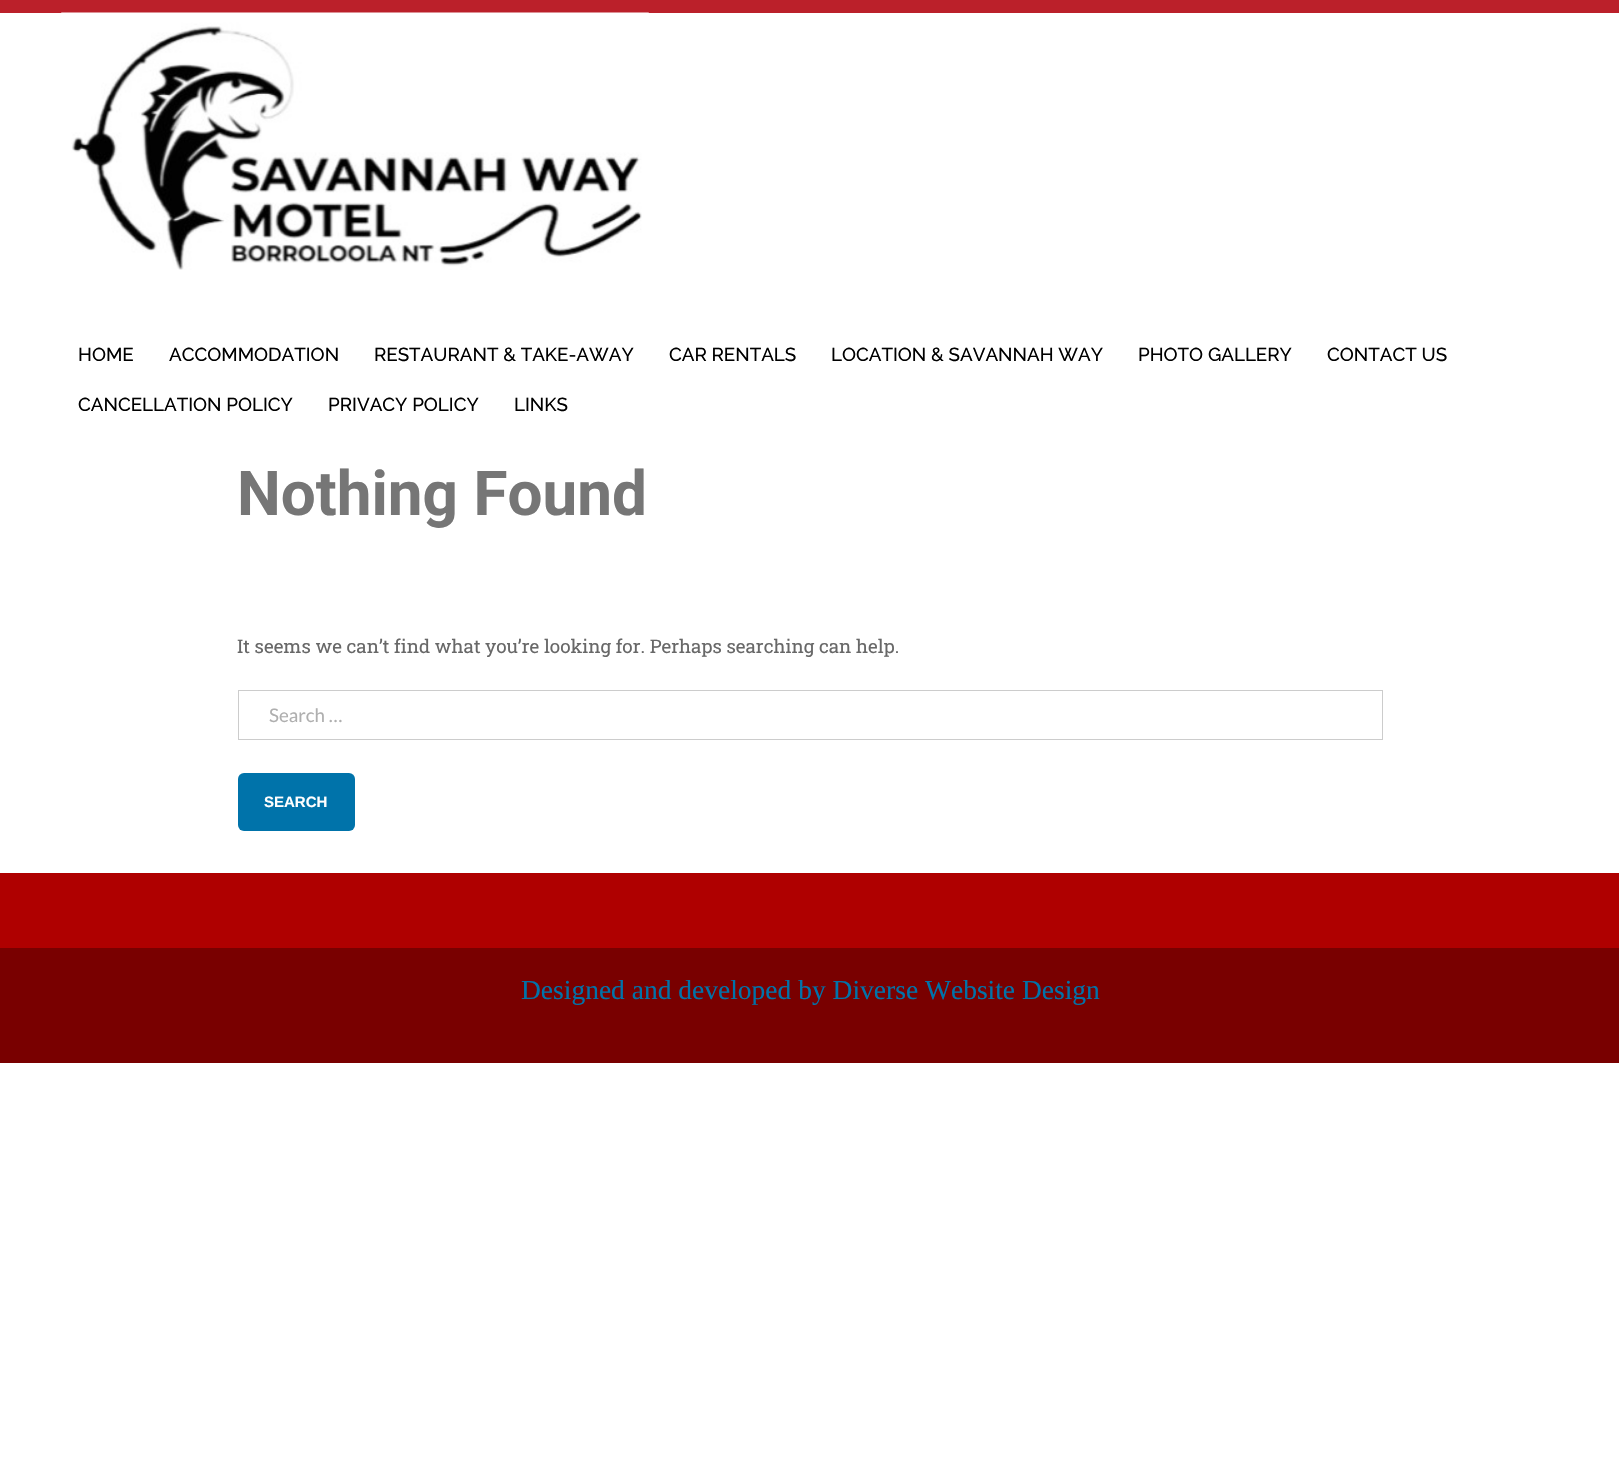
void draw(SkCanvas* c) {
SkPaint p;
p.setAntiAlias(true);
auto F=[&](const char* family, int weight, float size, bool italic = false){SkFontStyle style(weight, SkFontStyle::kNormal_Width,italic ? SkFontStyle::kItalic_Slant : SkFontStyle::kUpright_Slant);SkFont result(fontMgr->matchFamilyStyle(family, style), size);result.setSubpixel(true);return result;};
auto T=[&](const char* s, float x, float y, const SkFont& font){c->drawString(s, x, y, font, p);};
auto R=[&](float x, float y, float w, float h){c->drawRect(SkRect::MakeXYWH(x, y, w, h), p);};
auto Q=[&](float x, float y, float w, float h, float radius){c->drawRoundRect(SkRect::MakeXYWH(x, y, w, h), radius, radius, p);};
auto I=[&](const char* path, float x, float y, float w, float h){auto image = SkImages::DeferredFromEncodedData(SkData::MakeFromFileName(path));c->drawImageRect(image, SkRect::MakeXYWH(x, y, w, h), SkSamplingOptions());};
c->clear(0xffffffff);
p.setColor(0xffbb202a);
R(0,0,1619,13);
I("1.png",61,12,588,258);
auto f1 = F("Raleway",500,18.75);
p.setColor(0xff000000);
T("HOME",78,361,f1);
T("ACCOMMODATION",169,361,f1);
T("RESTAURANT & TAKE-AWAY",374,361,f1);
T("CAR RENTALS",669,361,f1);
T("LOCATION & SAVANNAH WAY",831,361,f1);
T("PHOTO GALLERY",1138,361,f1);
T("CONTACT US",1327,361,f1);
T("CANCELLATION POLICY",78,411,f1);
T("PRIVACY POLICY",328,411,f1);
T("LINKS",514,411,f1);
auto f2 = F("Roboto",700,62);
p.setColor(0xff767676);
T("Nothing Found",237,515,f2);
auto f3 = F("Roboto Slab",400,18.75);
p.setColor(0xff686868);
T("It seems we can’t find what you’re looking for. Perhaps searching can help.",237,653,f3);
p.setStroke(true);
p.setStrokeWidth(1);
p.setColor(0xffcccccc);
c->drawRect(SkRect::MakeXYWH(238.5,690.5,1144,49),p);
auto f4 = F("Lato",400,18.75);
p.setStroke(false);
p.setColor(0xffafafaf);
T("Search …",269,722,f4);
p.setColor(0xff0073aa);
Q(238,773,117,58,6);
auto f5 = F("Liberation Sans",700,15);
p.setColor(0xffffffff);
T("SEARCH",264,807,f5);
p.setColor(0xffaf0000);
R(0,873,1619,75);
p.setColor(0xff790000);
R(0,948,1619,115);
auto f6 = F("Liberation Serif",400,27.5);
p.setColor(0xff0073aa);
T("Designed and developed by Diverse Website Design",521,999,f6);
}
